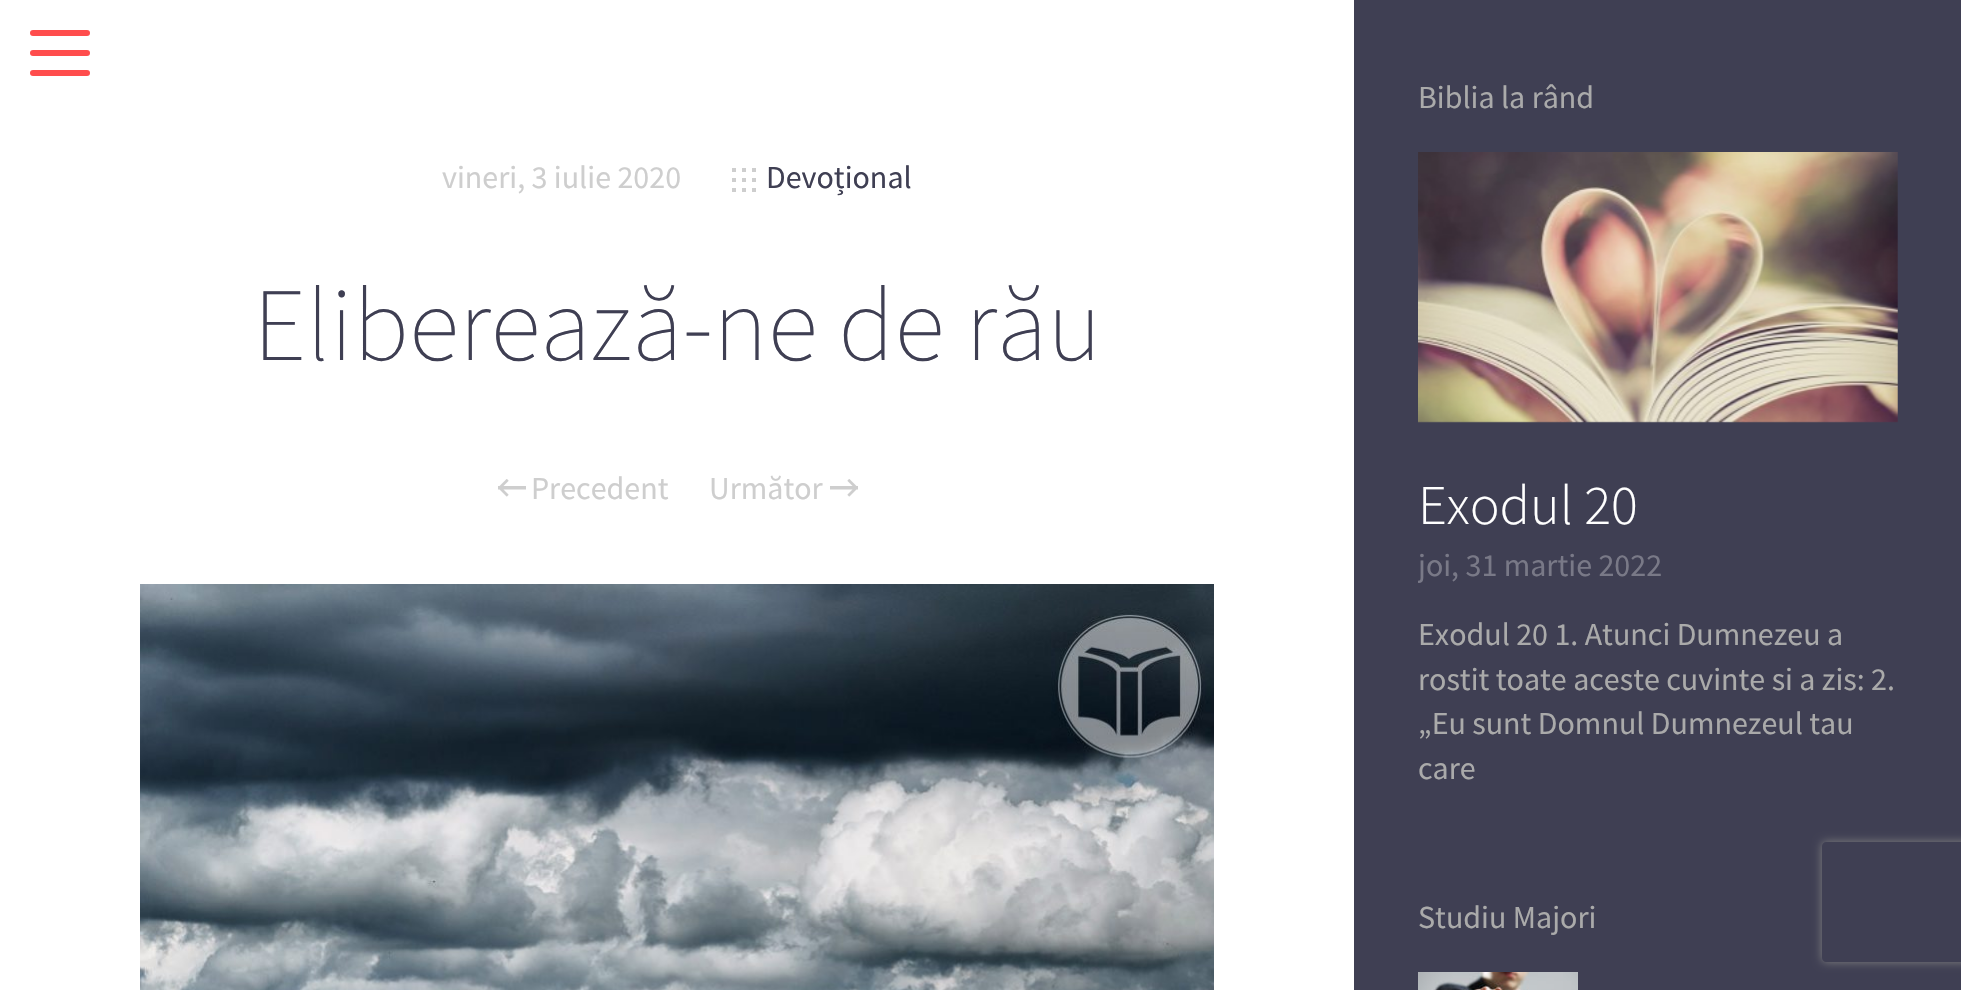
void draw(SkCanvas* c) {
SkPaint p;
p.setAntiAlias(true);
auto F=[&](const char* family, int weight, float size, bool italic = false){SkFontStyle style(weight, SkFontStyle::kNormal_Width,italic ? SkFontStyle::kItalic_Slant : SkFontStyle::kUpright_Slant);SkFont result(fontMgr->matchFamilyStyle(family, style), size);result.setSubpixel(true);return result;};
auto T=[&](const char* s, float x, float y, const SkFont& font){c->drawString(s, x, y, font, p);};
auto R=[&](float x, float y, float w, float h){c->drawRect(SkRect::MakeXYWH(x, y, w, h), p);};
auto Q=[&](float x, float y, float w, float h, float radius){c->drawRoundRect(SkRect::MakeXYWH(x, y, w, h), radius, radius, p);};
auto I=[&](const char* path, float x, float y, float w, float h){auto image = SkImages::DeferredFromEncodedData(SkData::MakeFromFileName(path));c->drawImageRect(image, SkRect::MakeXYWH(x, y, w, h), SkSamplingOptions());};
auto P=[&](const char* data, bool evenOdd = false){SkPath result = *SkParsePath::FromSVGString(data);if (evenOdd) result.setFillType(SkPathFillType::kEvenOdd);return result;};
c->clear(0xffffffff);
p.setColor(0xffff4d4d);
Q(30,50,60,6,3);
Q(30,30,60,6,3);
Q(30,70,60,6,3);
auto f1 = F("Source Sans Pro",400,32);
p.setColor(0xffcecece);
T("vineri, 3 iulie 2020",442,188,f1);
I("1.png",732,168,24,24);
p.setColor(0xff3f3f53);
T("Devoțional",766,188,f1);
auto f2 = F("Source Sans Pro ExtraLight",200,104);
T("Eliberează-ne de rău",253,360,f2);
I("2.png",498,479,28,18);
p.setColor(0xffcecece);
T("Precedent",531,499,f1);
T("Următor",709,499,f1);
I("3.png",830,479,28,18);
I("4.png",140,584,1074,406);
p.setColor(0xff3f3f53);
R(1354,0,607,990);
p.setColor(0xffaaaaaa);
T("Biblia la rând",1418,108,f1);
I("5.png",1418,152,480,271);
auto f3 = F("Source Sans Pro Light",300,56);
p.setColor(0xffffffff);
T("Exodul 20",1418,524,f3);
c->save();
c->clipRect(SkRect::MakeXYWH(1418,152,480,638));
p.setColor(0xff797987);
T("joi, 31 martie 2022",1418,576,f1);
c->restore();
p.setColor(0xffaaaaaa);
T("Exodul 20 1. Atunci Dumnezeu a",1418,645,f1);
T("rostit toate aceste cuvinte si a zis: 2.",1418,690,f1);
T("„Eu sunt Domnul Dumnezeul tau",1418,734,f1);
T("care",1418,779,f1);
T("Studiu Majori",1418,928,f1);
I("6.png",1418,972,160,18);
c->save();
c->clipPath(P("M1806 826h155v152h-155zm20 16h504c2 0 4 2 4 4v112c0 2-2 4-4 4h-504c-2 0-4-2-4-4v-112c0-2 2-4 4-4z",true),true);
p.setColor(0xff808080);
p.setMaskFilter(SkMaskFilter::MakeBlur(kNormal_SkBlurStyle, 5));
c->drawRoundRect(SkRect::MakeXYWH(1822,842,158,120),4,4,p);
p.setMaskFilter(nullptr);
c->restore();
}
